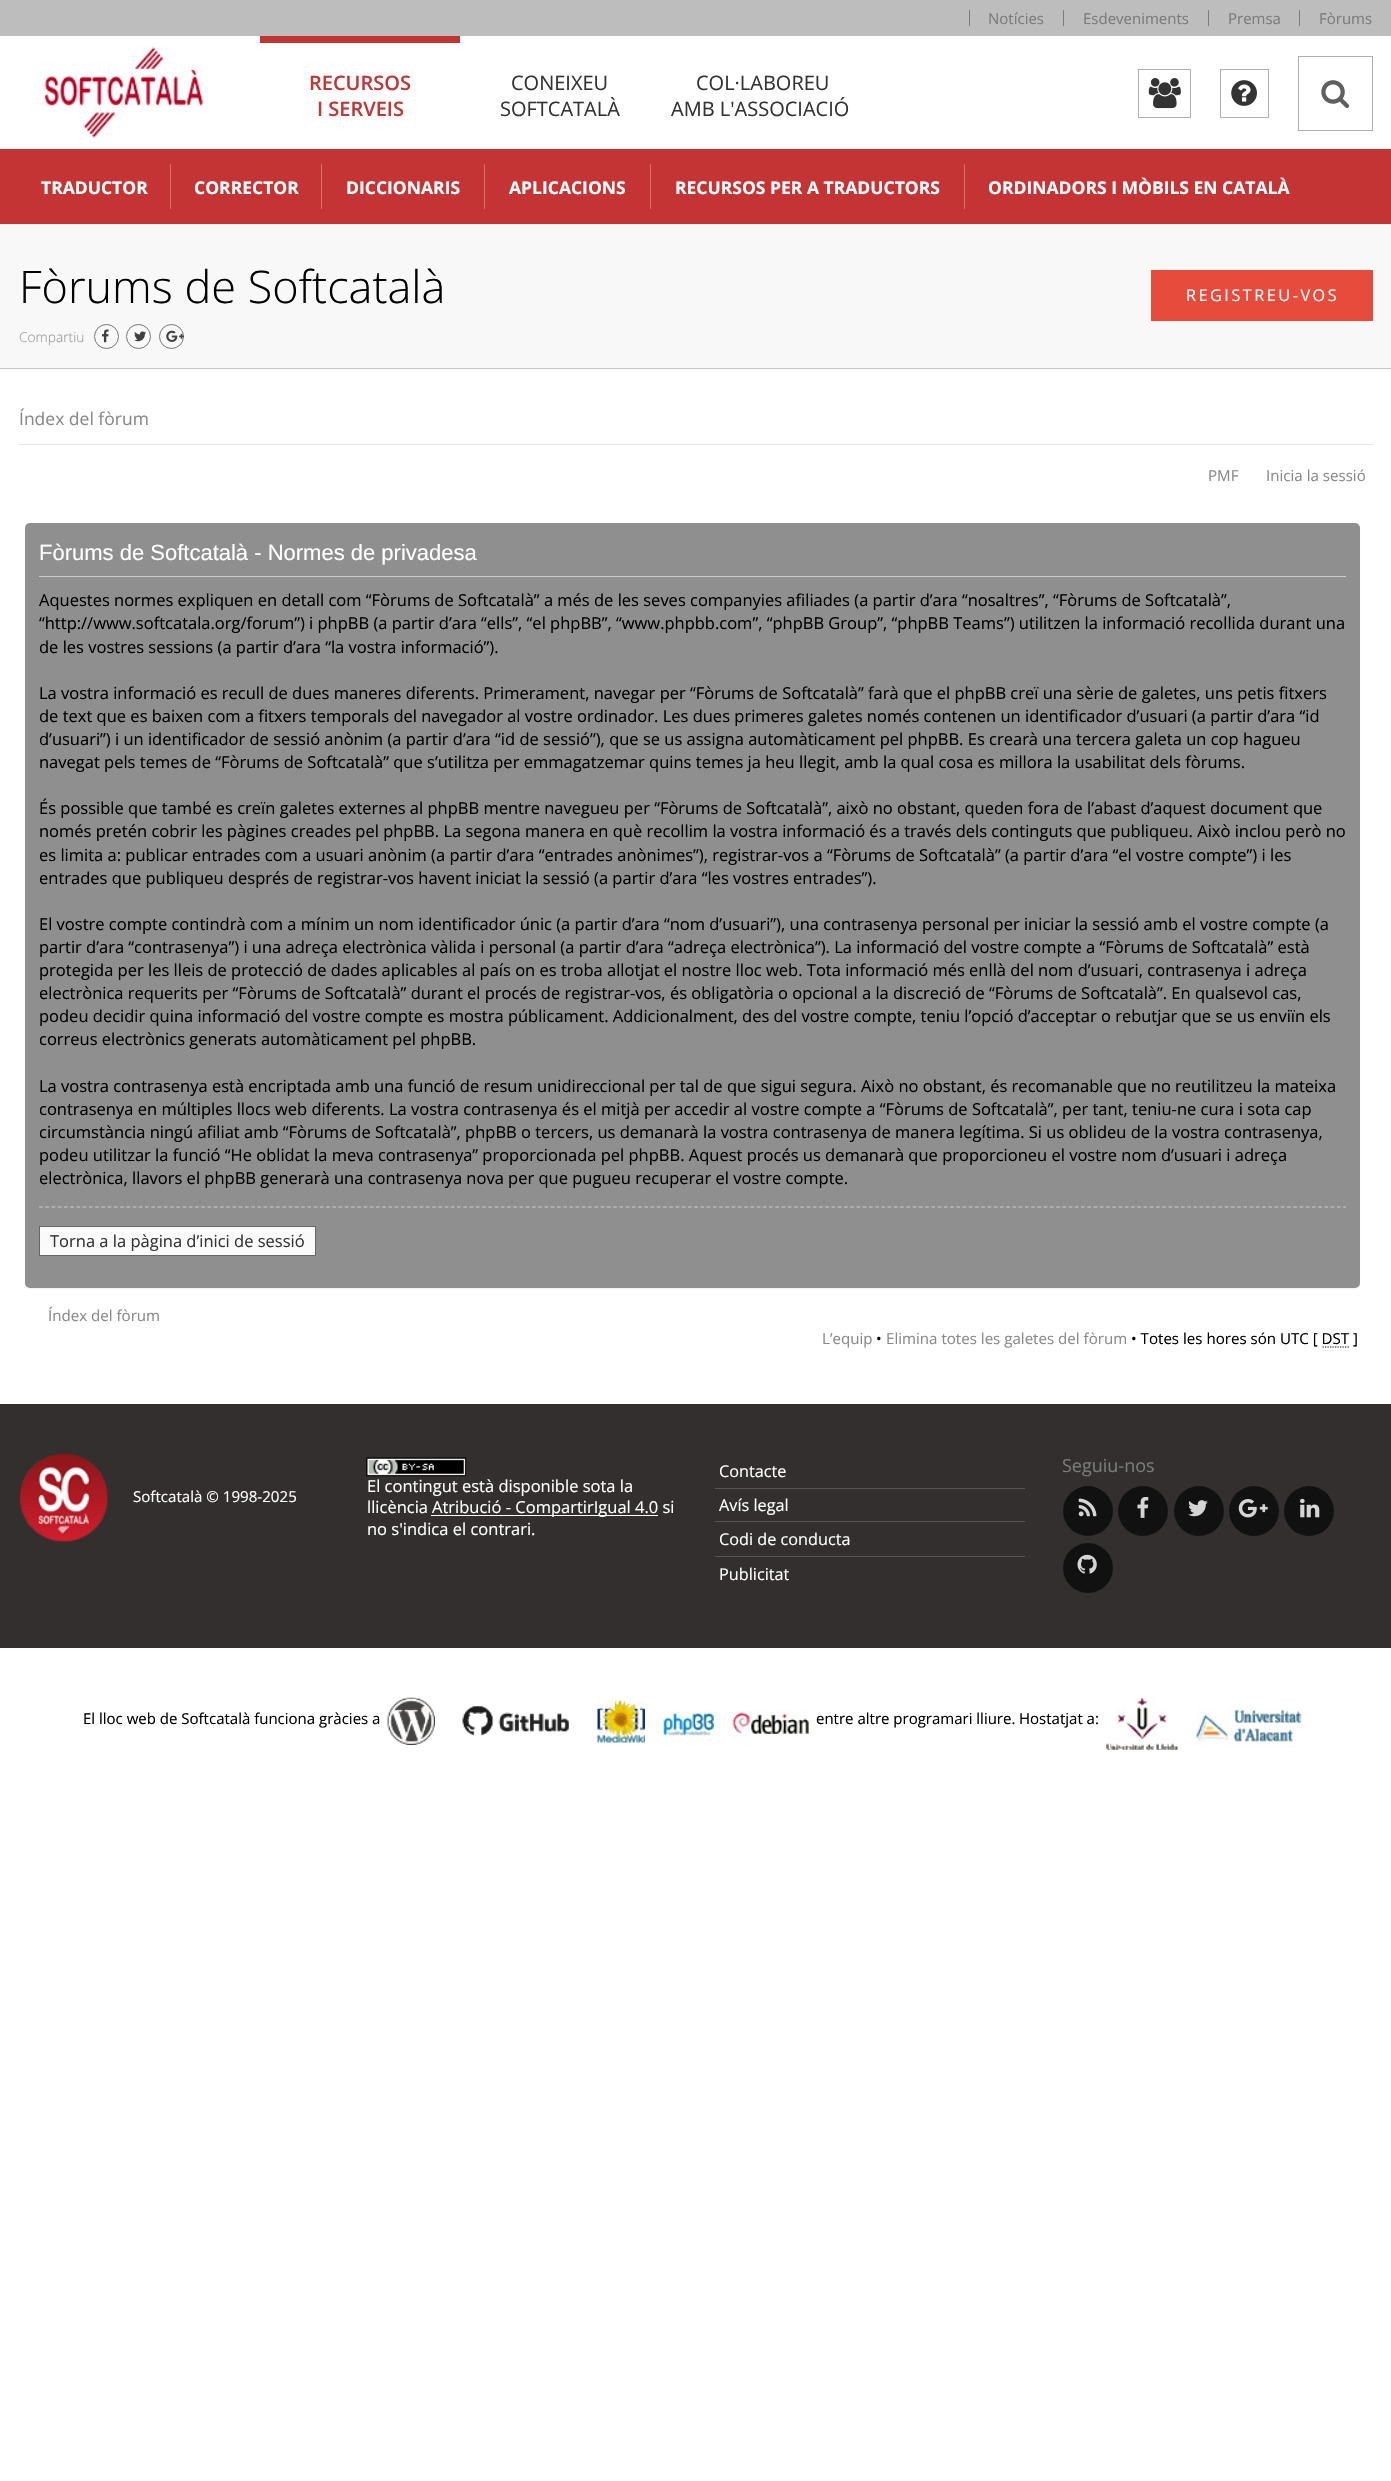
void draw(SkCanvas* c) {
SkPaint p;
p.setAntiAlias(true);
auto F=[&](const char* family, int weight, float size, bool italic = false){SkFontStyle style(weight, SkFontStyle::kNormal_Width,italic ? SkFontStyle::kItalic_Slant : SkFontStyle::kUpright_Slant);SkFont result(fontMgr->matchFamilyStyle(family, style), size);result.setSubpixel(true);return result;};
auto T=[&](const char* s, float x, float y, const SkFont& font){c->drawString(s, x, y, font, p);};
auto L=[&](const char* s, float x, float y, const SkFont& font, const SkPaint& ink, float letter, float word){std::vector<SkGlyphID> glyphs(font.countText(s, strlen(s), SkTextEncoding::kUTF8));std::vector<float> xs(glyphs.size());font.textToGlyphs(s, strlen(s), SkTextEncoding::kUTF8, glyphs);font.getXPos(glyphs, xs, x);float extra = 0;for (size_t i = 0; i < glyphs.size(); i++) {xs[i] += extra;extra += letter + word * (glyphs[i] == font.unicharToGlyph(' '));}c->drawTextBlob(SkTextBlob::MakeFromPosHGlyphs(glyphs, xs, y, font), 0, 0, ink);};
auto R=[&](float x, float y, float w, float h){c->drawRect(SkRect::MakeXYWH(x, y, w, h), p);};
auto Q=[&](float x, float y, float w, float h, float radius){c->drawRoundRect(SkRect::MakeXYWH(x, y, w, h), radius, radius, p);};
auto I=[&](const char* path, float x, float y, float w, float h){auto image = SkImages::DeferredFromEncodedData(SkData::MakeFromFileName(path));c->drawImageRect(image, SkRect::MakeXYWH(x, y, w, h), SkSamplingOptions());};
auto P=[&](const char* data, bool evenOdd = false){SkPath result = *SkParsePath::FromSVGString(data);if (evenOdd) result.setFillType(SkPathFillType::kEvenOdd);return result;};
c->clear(0xffffffff);
p.setColor(0xffbdbdbd);
R(0,0,1391,36);
p.setColor(0xff7b7b7b);
R(969,10,1,16);
auto f1 = F("Open Sans",400,15);
T("Notícies",988,24,f1);
R(1063,10,1,16);
T("Esdeveniments",1083,24,f1);
R(1208,10,1,16);
T("Premsa",1228,24,f1);
R(1299,10,1,16);
T("Fòrums",1319,24,f1);
I("1.png",42,46,162,100);
p.setColor(0xffc43434);
R(260,36,200,7);
auto f2 = F("Open Sans",600,20);
T("RECURSOS",309,90,f2);
T("I SERVEIS",317,116,f2);
auto f3 = F("Open Sans",400,20);
p.setColor(0xff333333);
T("CONEIXEU",511,90,f3);
T("SOFTCATALÀ",500,116,f3);
T("COL·LABOREU",696,90,f3);
T("AMB L'ASSOCIACIÓ",671,116,f3);
p.setStroke(true);
p.setStrokeWidth(1);
p.setColor(0xffafafaf);
c->drawRect(SkRect::MakeXYWH(1138.5,69.5,52,48),p);
I("2.png",1148,78,33,31);
c->drawRect(SkRect::MakeXYWH(1220.5,69.5,48,48),p);
I("3.png",1231,80,26,26);
c->drawRect(SkRect::MakeXYWH(1298.5,56.5,74,74),p);
I("4.png",1321,80,29,28);
p.setStroke(false);
p.setColor(0xffc43434);
R(0,149,1391,75);
auto f4 = F("Open Sans",700,17.5);
p.setColor(0xffffffff);
T("TRADUCTOR",41,194,f4);
p.setColor(0xffd67171);
R(170,164,1,45);
p.setColor(0xffffffff);
T("CORRECTOR",194,194,f4);
p.setColor(0xffd67171);
R(321,164,1,45);
p.setColor(0xffffffff);
T("DICCIONARIS",346,194,f4);
p.setColor(0xffd67171);
R(484,164,1,45);
p.setColor(0xffffffff);
T("APLICACIONS",509,194,f4);
p.setColor(0xffd67171);
R(650,164,1,45);
p.setColor(0xffffffff);
T("RECURSOS PER A TRADUCTORS",675,194,f4);
p.setColor(0xffd67171);
R(964,164,1,45);
p.setColor(0xffffffff);
T("ORDINADORS I MÒBILS EN CATALÀ",988,194,f4);
p.setColor(0xfff8f8f8);
R(0,224,1391,144);
p.setColor(0xffc7c5c5);
R(0,368,1391,1);
auto f5 = F("Open Sans",300,45);
p.setColor(0xff000000);
T("Fòrums de Softcatalà",19,303,f5);
auto f6 = F("Open Sans",300,13.75);
p.setColor(0xff999999);
T("Compartiu",19,342,f6);
p.setStroke(true);
p.setColor(0xff767676);
c->drawCircle(106.5,336.5,12,p);
I("5.png",102,329,7,14);
c->drawCircle(138.5,336.5,12,p);
I("6.png",134,331,12,11);
c->drawCircle(171.5,336.5,12,p);
I("7.png",166,330,18,12);
p.setStroke(false);
p.setColor(0xffe64b3c);
R(1151,270,222,51);
auto f7 = F("Open Sans",400,16.25);
p.setColor(0xffffffff);
L("REGISTREU-VOS",1186,301,f7,p,2.5,0);
auto f8 = F("Open Sans",400,17.5);
p.setColor(0xff898989);
T("Índex del fòrum",19,425,f8);
p.setColor(0xffe4e4e4);
R(19,444,1354,1);
auto f9 = F("Open Sans",400,15.1);
p.setColor(0xff898989);
T("PMF",1208,481,f9);
T("Inicia la sessió",1266,481,f9);
p.setColor(0x0d000000);
p.setMaskFilter(SkMaskFilter::MakeBlur(kNormal_SkBlurStyle, .5));
c->drawRoundRect(SkRect::MakeXYWH(25,524,1335,765),5,5,p);
p.setMaskFilter(nullptr);
p.setColor(0xff8f8f8f);
Q(25,523,1335,765,5);
p.setColor(0xffcccccc);
R(39,576,1307,1);
auto f10 = F("Liberation Sans",400,22);
p.setColor(0xffffffff);
T("Fòrums de Softcatalà - Normes de privadesa",39,560,f10);
auto f11 = F("Open Sans",400,16.5);
p.setColor(0xff000000);
T("Aquestes normes expliquen en detall com “Fòrums de Softcatalà” a més de les seves companyies afiliades (a partir d’ara “nosaltres”, “Fòrums de Softcatalà”,",39,606,f11);
T("“http://www.softcatala.org/forum”) i phpBB (a partir d’ara “ells”, “el phpBB”, “www.phpbb.com”, “phpBB Group”, “phpBB Teams”) utilitzen la informació recollida durant una",39,629,f11);
T("de les vostres sessions (a partir d’ara “la vostra informació”).",39,653,f11);
T("La vostra informació es recull de dues maneres diferents. Primerament, navegar per “Fòrums de Softcatalà” farà que el phpBB creï una sèrie de galetes, uns petis fitxers",39,699,f11);
T("de text que es baixen com a fitxers temporals del navegador al vostre ordinador. Les dues primeres galetes només contenen un identificador d’usuari (a partir d’ara “id",39,722,f11);
T("d’usuari”) i un identificador de sessió anònim (a partir d’ara “id de sessió”), que se us assigna automàticament pel phpBB. Es crearà una tercera galeta un cop hagueu",39,745,f11);
T("navegat pels temes de “Fòrums de Softcatalà” que s’utilitza per emmagatzemar quins temes ja heu llegit, amb la qual cosa es millora la usabilitat dels fòrums.",39,768,f11);
T("És possible que també es creïn galetes externes al phpBB mentre navegueu per “Fòrums de Softcatalà”, això no obstant, queden fora de l’abast d’aquest document que",39,814,f11);
T("només pretén cobrir les pàgines creades pel phpBB. La segona manera en què recollim la vostra informació és a través dels continguts que publiqueu. Això inclou però no",39,837,f11);
T("es limita a: publicar entrades com a usuari anònim (a partir d’ara “entrades anònimes”), registrar-vos a “Fòrums de Softcatalà” (a partir d’ara “el vostre compte”) i les",39,861,f11);
T("entrades que publiqueu després de registrar-vos havent iniciat la sessió (a partir d’ara “les vostres entrades”).",39,884,f11);
T("El vostre compte contindrà com a mínim un nom identificador únic (a partir d’ara “nom d’usuari”), una contrasenya personal per iniciar la sessió amb el vostre compte (a",39,930,f11);
T("partir d’ara “contrasenya”) i una adreça electrònica vàlida i personal (a partir d’ara “adreça electrònica”). La informació del vostre compte a “Fòrums de Softcatalà” està",39,953,f11);
T("protegida per les lleis de protecció de dades aplicables al país on es troba allotjat el nostre lloc web. Tota informació més enllà del nom d’usuari, contrasenya i adreça",39,976,f11);
T("electrònica requerits per “Fòrums de Softcatalà” durant el procés de registrar-vos, és obligatòria o opcional a la discreció de “Fòrums de Softcatalà”. En qualsevol cas,",39,999,f11);
T("podeu decidir quina informació del vostre compte es mostra públicament. Addicionalment, des del vostre compte, teniu l’opció d’acceptar o rebutjar que se us enviïn els",39,1022,f11);
T("correus electrònics generats automàticament pel phpBB.",39,1045,f11);
T("La vostra contrasenya està encriptada amb una funció de resum unidireccional per tal de que sigui segura. Això no obstant, és recomanable que no reutilitzeu la mateixa",39,1092,f11);
T("contrasenya en múltiples llocs web diferents. La vostra contrasenya és el mitjà per accedir al vostre compte a “Fòrums de Softcatalà”, per tant, teniu-ne cura i sota cap",39,1115,f11);
T("circumstància ningú afiliat amb “Fòrums de Softcatalà”, phpBB o tercers, us demanarà la vostra contrasenya de manera legítima. Si us oblideu de la vostra contrasenya,",39,1138,f11);
T("podeu utilitzar la funció “He oblidat la meva contrasenya” proporcionada pel phpBB. Aquest procés us demanarà que proporcioneu el vostre nom d’usuari i adreça",39,1161,f11);
T("electrònica, llavors el phpBB generarà una contrasenya nova per que pugueu recuperar el vostre compte.",39,1184,f11);
p.setStroke(true);
p.setStrokeWidth(1.2);
p.setColor(0xffcccccc);
p.setPathEffect(SkDashPathEffect::Make({{3.75f,2.49f}}, 0));
c->drawPath(P("M39 1207h1307"),p);
p.setPathEffect(nullptr);
p.setStroke(false);
p.setColor(0xfffafafa);
c->drawRect(SkRect::MakeXYWH(39.5,1226.5,276,29),p);
p.setStroke(true);
p.setStrokeWidth(1);
p.setColor(0xff666666);
c->drawRect(SkRect::MakeXYWH(39.5,1226.5,276,29),p);
p.setStroke(false);
p.setColor(0xff333333);
T("Torna a la pàgina d’inici de sessió",50,1247,f11);
p.setColor(0xff898989);
T("Índex del fòrum",48,1321,f9);
T("L’equip",822,1344,f9);
p.setColor(0xff000000);
T("•",876,1344,f9);
p.setColor(0xff898989);
T("Elimina totes les galetes del fòrum",886,1344,f9);
p.setColor(0xff000000);
T("• Totes les hores són UTC [ DST ]",1131,1344,f9);
p.setStroke(true);
p.setStrokeWidth(1.2);
p.setPathEffect(SkDashPathEffect::Make({{1.25f,1.25f}}, 0));
c->drawPath(P("M1322.5 1347h27.5"),p);
p.setPathEffect(nullptr);
p.setColor(0xffeae8e8);
p.setPathEffect(SkDashPathEffect::Make({{1.25f,1.25f}}, 0));
c->drawPath(P("M1322.5 1350.5h27.5"),p);
p.setPathEffect(nullptr);
p.setStroke(false);
p.setColor(0xff332f2e);
R(0,1404,1391,244);
I("8.png",19,1453,89,89);
p.setColor(0xffffffff);
T("Softcatalà © 1998-2025",133,1502,f9);
I("9.png",366,1457,101,20);
T("El contingut està disponible sota la",367,1492,f11);
T("llicència",367,1513,f11);
R(431,1515,227,1);
T("Atribució - CompartirIgual 4.0 si",432,1513,f11);
T("no s'indica el contrari.",367,1535,f11);
p.setColor(0xff575555);
R(715,1488,310,1);
p.setColor(0xffffffff);
T("Contacte",719,1477,f7);
p.setColor(0xff575555);
R(715,1521,310,1);
p.setColor(0xffffffff);
T("Avís legal",719,1511,f7);
p.setColor(0xff575555);
R(715,1556,310,1);
p.setColor(0xffffffff);
T("Codi de conducta",719,1545,f7);
T("Publicitat",719,1580,f7);
auto f12 = F("Open Sans",400,18);
p.setColor(0xff7b7b7b);
T("Seguiu-nos",1062,1472,f12);
p.setColor(0xff111111);
c->drawCircle(1088,1511,25,p);
I("10.png",1078,1498,19,19);
c->drawCircle(1143,1511,25,p);
I("11.png",1137,1497,12,21);
c->drawCircle(1199,1511,25,p);
I("12.png",1188,1500,20,17);
c->drawCircle(1254,1511,25,p);
I("13.png",1238,1499,30,19);
c->drawCircle(1309,1511,25,p);
I("14.png",1300,1498,20,20);
c->drawCircle(1088,1568,25,p);
I("15.png",1077,1554,20,20);
p.setColor(0xff000000);
T("El lloc web de Softcatalà funciona gràcies a",83,1724,f1);
I("16.png",387,1697,48,48);
I("17.png",462,1706,107,30);
I("18.png",597,1700,48,43);
I("19.png",663,1710,51,30);
I("20.png",732,1710,77,30);
T("entre altre programari lliure.",816,1724,f1);
T("Hostatjat a:",1019,1724,f1);
I("21.png",1106,1697,72,53);
I("22.png",1196,1707,106,41);
}
